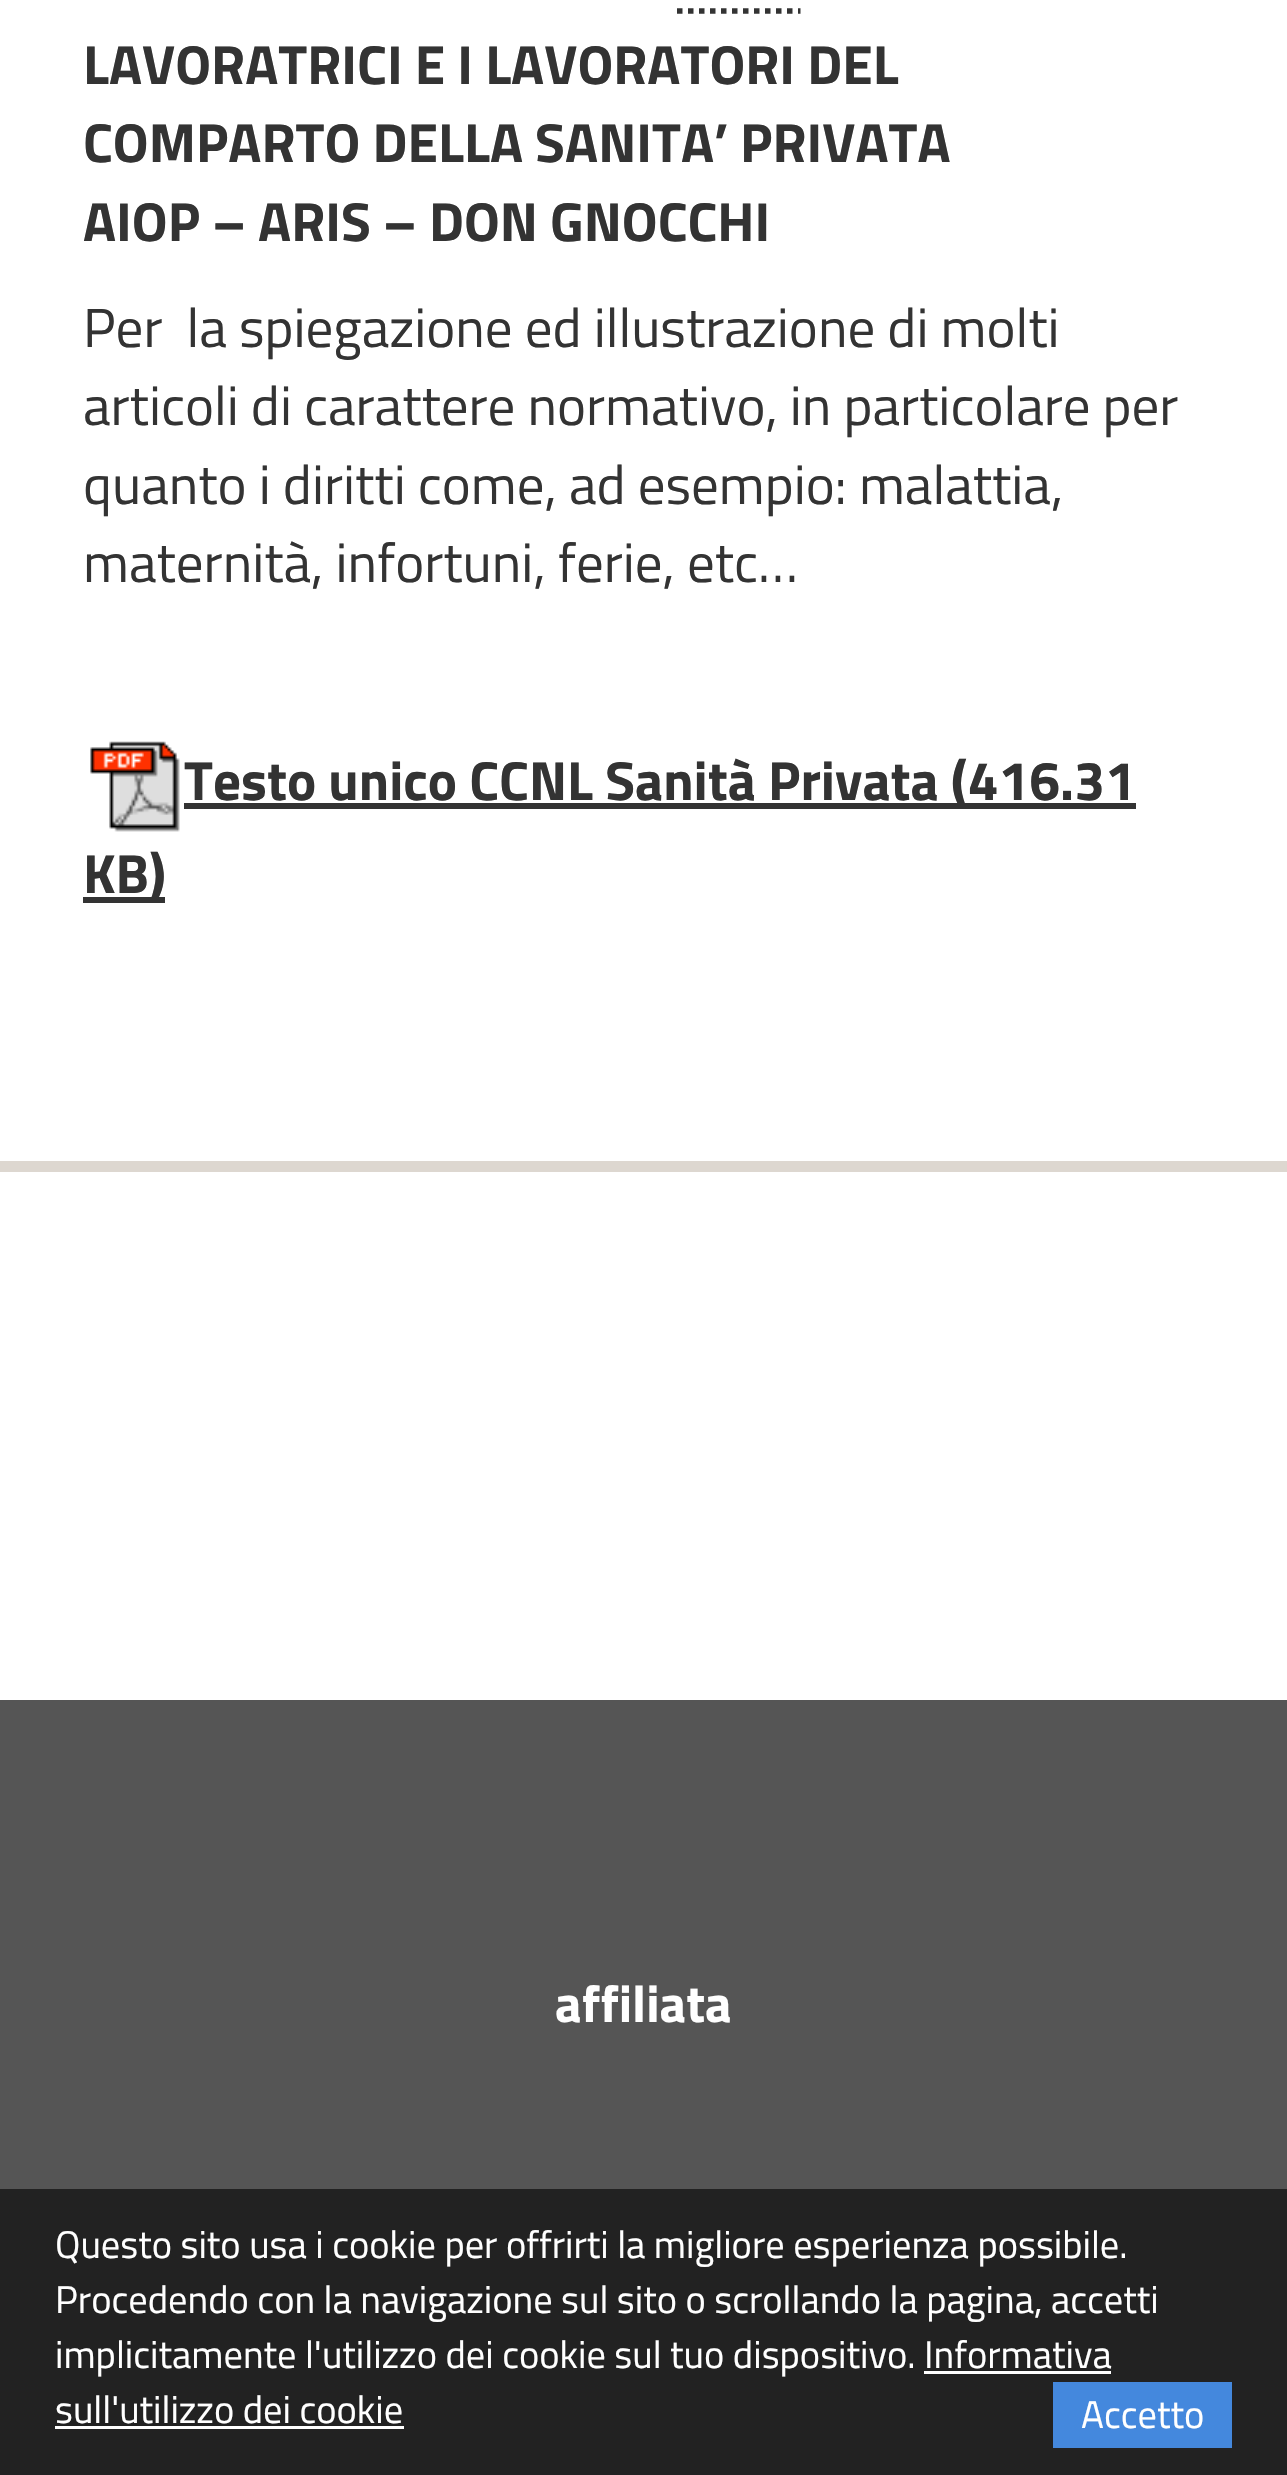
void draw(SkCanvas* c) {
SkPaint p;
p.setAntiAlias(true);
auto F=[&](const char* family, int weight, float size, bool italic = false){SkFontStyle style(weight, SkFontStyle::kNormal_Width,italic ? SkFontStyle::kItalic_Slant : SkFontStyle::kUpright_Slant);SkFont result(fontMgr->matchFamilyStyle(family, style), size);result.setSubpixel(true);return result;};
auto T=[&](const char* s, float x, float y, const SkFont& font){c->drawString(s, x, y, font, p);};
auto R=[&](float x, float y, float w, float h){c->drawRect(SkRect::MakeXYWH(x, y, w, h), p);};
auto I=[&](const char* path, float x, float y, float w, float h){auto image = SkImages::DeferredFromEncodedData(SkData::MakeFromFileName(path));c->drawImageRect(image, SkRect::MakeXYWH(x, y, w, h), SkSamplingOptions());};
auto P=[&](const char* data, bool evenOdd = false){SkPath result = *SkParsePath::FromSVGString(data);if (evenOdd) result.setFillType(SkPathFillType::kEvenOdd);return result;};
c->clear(0xffffffff);
auto f1 = F("Titillium Web",700,55);
p.setColor(0xff333333);
T("LAVORATRICI E I LAVORATORI DEL",83,84,f1);
p.setStroke(true);
p.setStrokeWidth(5.5);
p.setPathEffect(SkDashPathEffect::Make({{5.5f,5.5f}}, 0));
c->drawPath(P("M677 11h123.5"),p);
p.setPathEffect(nullptr);
p.setStroke(false);
T("COMPARTO DELLA SANITA’ PRIVATA",83,162,f1);
T("AIOP – ARIS – DON GNOCCHI",83,241,f1);
auto f2 = F("Titillium Web",400,55);
T("Per  la spiegazione ed illustrazione di molti",83,347,f2);
T("articoli di carattere normativo, in particolare per",83,425,f2);
T("quanto i diritti come, ad esempio: malattia,",83,504,f2);
T("maternità, infortuni, ferie, etc…",83,582,f2);
I("1.png",90,741,90,91);
R(184,803,952,6);
T("Testo unico CCNL Sanità Privata (416.31",184,800,f1);
R(83,897,82,6);
T("KB)",83,893,f1);
p.setColor(0xffddd7d0);
R(0,1161,1287,11);
p.setColor(0xff555555);
R(0,1700,1287,489);
auto f3 = F("Titillium Web",700,52);
p.setColor(0xffffffff);
T("affiliata",555,2022,f3);
p.setColor(0xff222222);
R(0,2189,1287,286);
auto f4 = F("Titillium Web",400,38.5);
p.setColor(0xffffffff);
T("Questo sito usa i cookie per offrirti la migliore esperienza possibile.",55,2258,f4);
T("Procedendo con la navigazione sul sito o scrollando la pagina, accetti",55,2313,f4);
T("implicitamente l'utilizzo dei cookie sul tuo dispositivo. Informativa",55,2368,f4);
T("sull'utilizzo dei cookie",55,2423,f4);
R(924,2371,187,3);
R(55,2426,349,3);
p.setColor(0xff4488dd);
R(1053,2382,179,66);
p.setColor(0xffffffff);
T("Accetto",1081,2428,f4);
}
